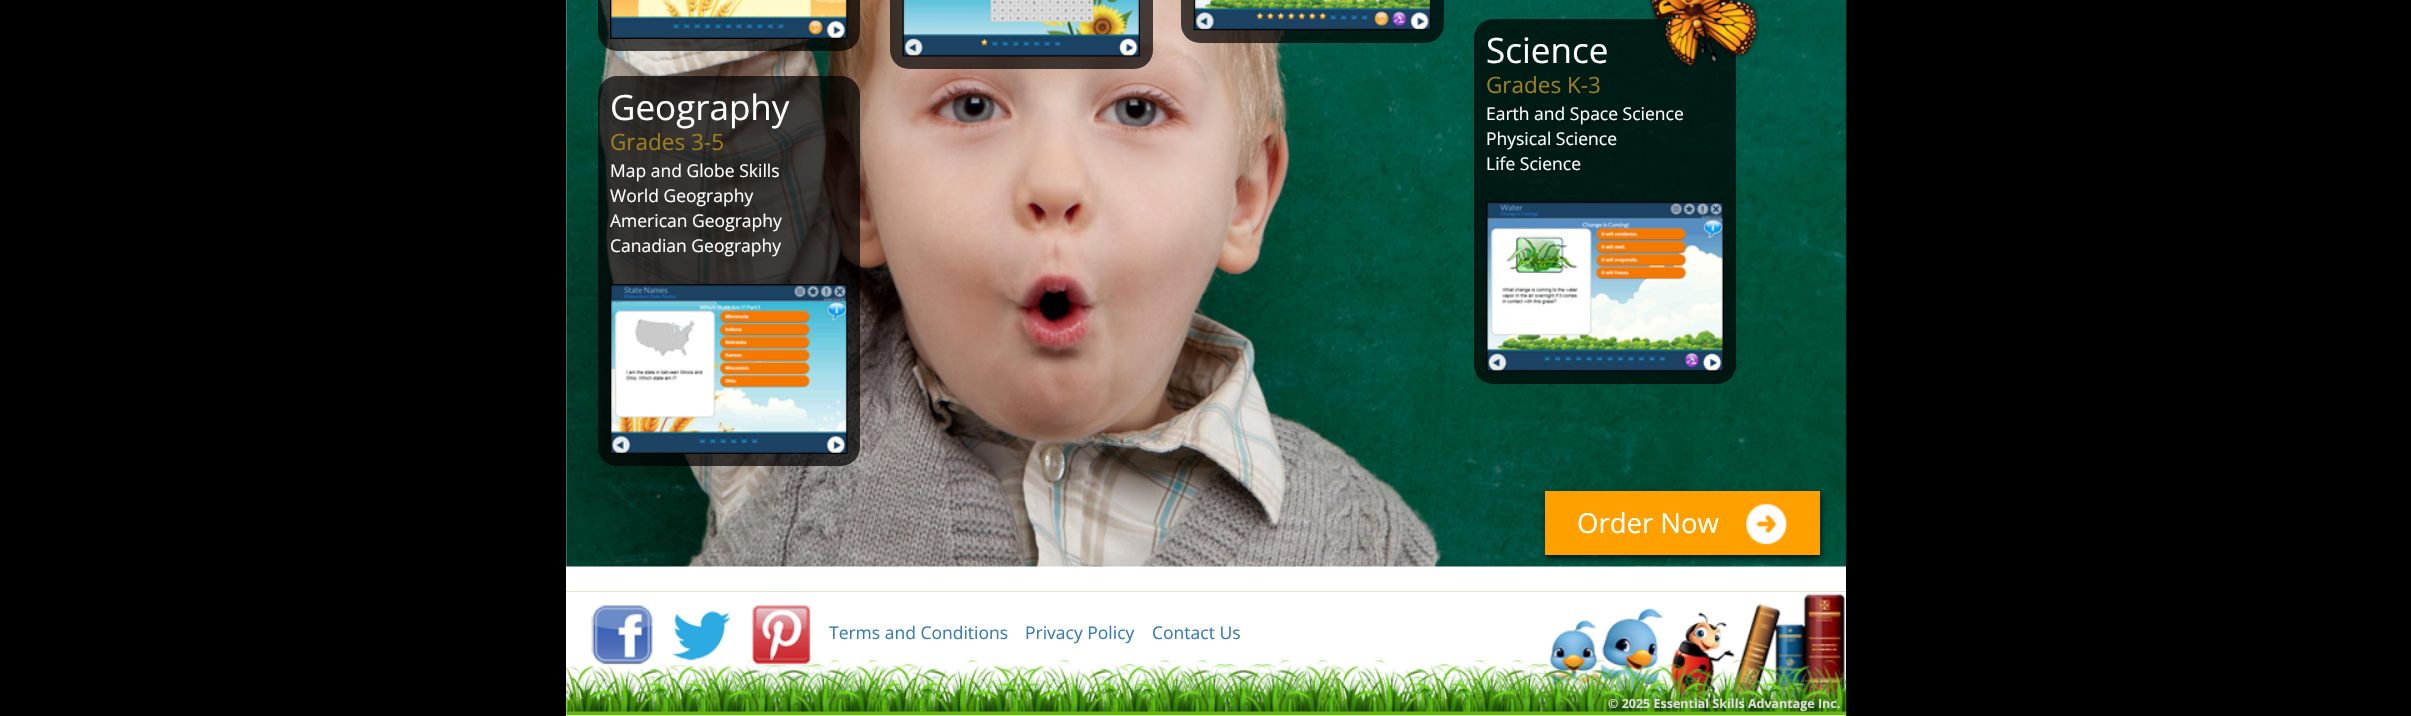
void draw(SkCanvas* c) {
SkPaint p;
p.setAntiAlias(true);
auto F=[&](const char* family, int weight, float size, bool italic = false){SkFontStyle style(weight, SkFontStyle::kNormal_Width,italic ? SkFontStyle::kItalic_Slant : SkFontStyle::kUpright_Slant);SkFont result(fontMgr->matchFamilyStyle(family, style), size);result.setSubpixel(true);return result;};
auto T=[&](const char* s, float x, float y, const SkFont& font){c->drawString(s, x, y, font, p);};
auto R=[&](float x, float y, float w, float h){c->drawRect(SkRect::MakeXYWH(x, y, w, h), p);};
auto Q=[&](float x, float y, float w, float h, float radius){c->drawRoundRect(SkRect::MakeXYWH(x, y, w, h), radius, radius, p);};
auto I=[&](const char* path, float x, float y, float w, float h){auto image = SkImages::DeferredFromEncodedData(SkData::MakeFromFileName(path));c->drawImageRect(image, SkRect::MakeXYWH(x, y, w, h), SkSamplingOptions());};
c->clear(0xff000000);
p.setColor(0xffffffff);
R(566,0,1280,716);
I("1.png",566,0,1281,567);
p.setColor(0xb3000000);
Q(890,-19,263,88,19);
I("2.png",902,0,238,57);
Q(1181,-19,263,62,19);
I("3.png",1193,0,239,31);
Q(598,-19,262,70,19);
I("4.png",610,0,238,39);
Q(598,76,262,390,19);
auto f1 = F("Open Sans",400,35);
p.setColor(0xffffffff);
T("Geography",610,120,f1);
auto f2 = F("Open Sans",400,22.5);
p.setColor(0xff9d7e1f);
T("Grades 3-5",610,150,f2);
auto f3 = F("Open Sans",400,17.5);
p.setColor(0xffffffff);
T("Map and Globe Skills",610,177,f3);
T("World Geography",610,202,f3);
T("American Geography",610,227,f3);
T("Canadian Geography",610,252,f3);
I("5.png",610,284,238,170);
p.setColor(0xb3000000);
Q(1474,19,262,365,19);
p.setColor(0xffffffff);
T("Science",1486,63,f1);
I("6.png",1647,0,113,67);
p.setColor(0xff9d7e1f);
T("Grades K-3",1486,93,f2);
p.setColor(0xffffffff);
T("Earth and Space Science",1486,120,f3);
T("Physical Science",1486,145,f3);
T("Life Science",1486,170,f3);
I("7.png",1486,201,238,171);
p.setColor(0xbf000000);
p.setMaskFilter(SkMaskFilter::MakeBlur(kNormal_SkBlurStyle, 3));
c->drawRect(SkRect::MakeXYWH(1546,494,275,64),p);
p.setMaskFilter(nullptr);
p.setColor(0xfffea100);
R(1545,491,275,64);
I("8.png",1746,503,41,42);
auto f4 = F("Open Sans",400,27.5);
p.setColor(0xffffffff);
T("Order Now",1577,533,f4);
I("9.png",566,591,1281,125);
I("10.png",591,605,62,61);
I("11.png",672,611,60,55);
I("12.png",750,605,63,61);
p.setColor(0xff337ab7);
T("Terms and Conditions",829,639,f3);
T("Privacy Policy",1025,639,f3);
T("Contact Us",1152,639,f3);
auto f5 = F("Open Sans",700,12.5);
p.setColor(0xffdddddd);
T("© 2025 Essential Skills Advantage Inc.",1608,708,f5);
}
